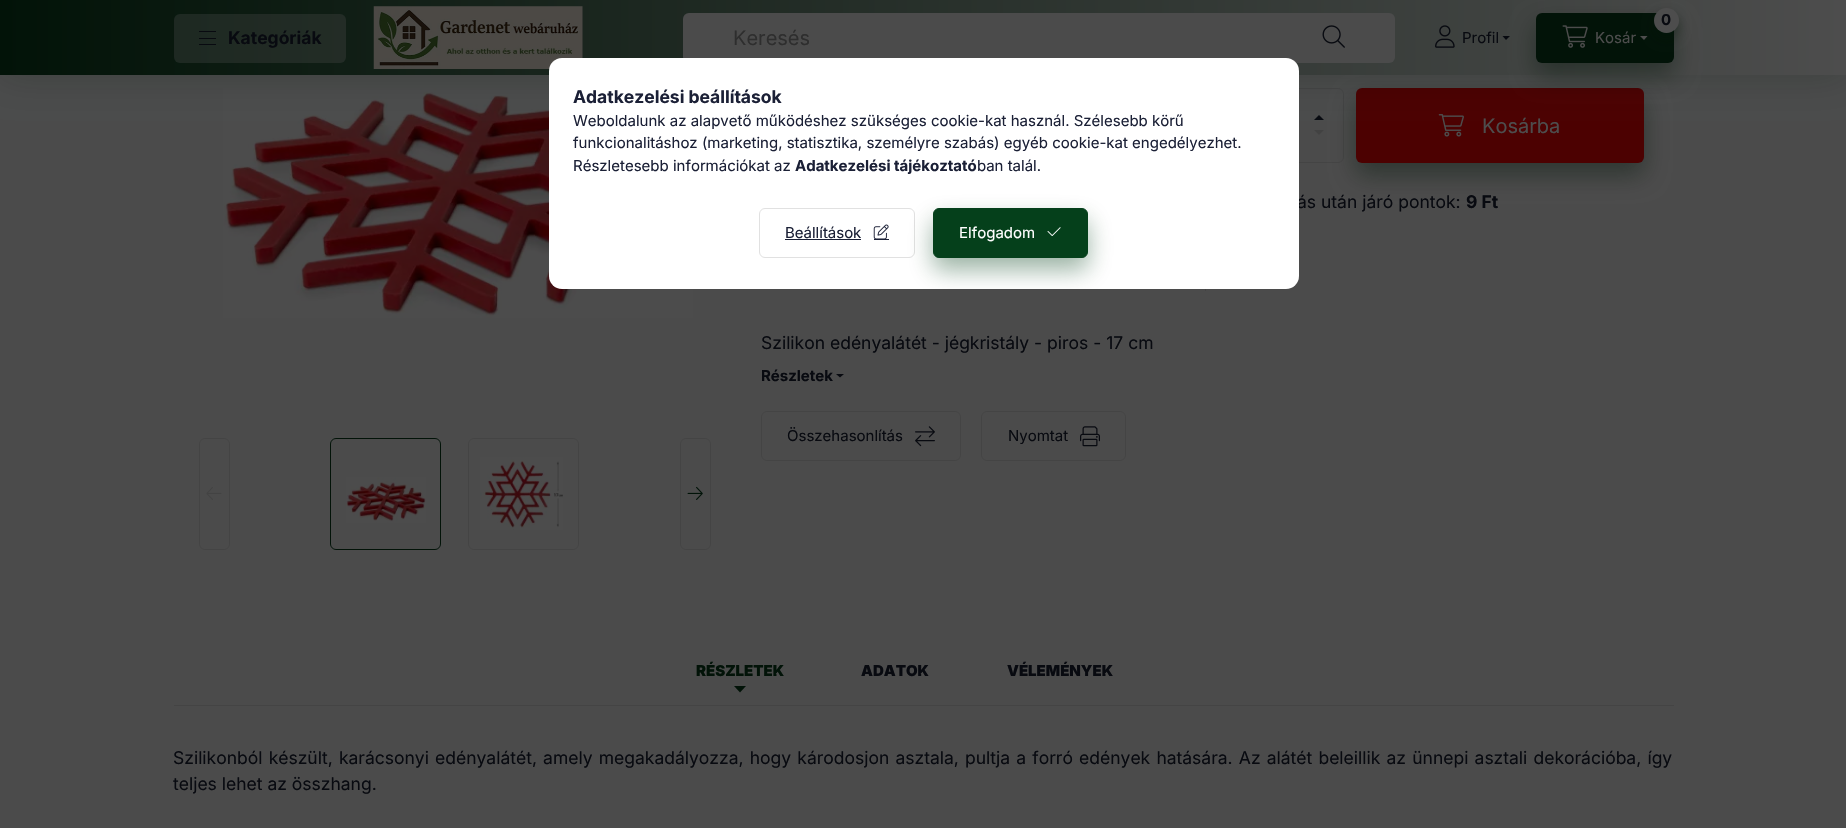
void draw(SkCanvas* c) {
SkPaint p;
p.setAntiAlias(true);
auto F=[&](const char* family, int weight, float size, bool italic = false){SkFontStyle style(weight, SkFontStyle::kNormal_Width,italic ? SkFontStyle::kItalic_Slant : SkFontStyle::kUpright_Slant);SkFont result(fontMgr->matchFamilyStyle(family, style), size);result.setSubpixel(true);return result;};
auto T=[&](const char* s, float x, float y, const SkFont& font){c->drawString(s, x, y, font, p);};
auto L=[&](const char* s, float x, float y, const SkFont& font, const SkPaint& ink, float letter, float word){std::vector<SkGlyphID> glyphs(font.countText(s, strlen(s), SkTextEncoding::kUTF8));std::vector<float> xs(glyphs.size());font.textToGlyphs(s, strlen(s), SkTextEncoding::kUTF8, glyphs);font.getXPos(glyphs, xs, x);float extra = 0;for (size_t i = 0; i < glyphs.size(); i++) {xs[i] += extra;extra += letter + word * (glyphs[i] == font.unicharToGlyph(' '));}c->drawTextBlob(SkTextBlob::MakeFromPosHGlyphs(glyphs, xs, y, font), 0, 0, ink);};
auto R=[&](float x, float y, float w, float h){c->drawRect(SkRect::MakeXYWH(x, y, w, h), p);};
auto Q=[&](float x, float y, float w, float h, float radius){c->drawRoundRect(SkRect::MakeXYWH(x, y, w, h), radius, radius, p);};
auto I=[&](const char* path, float x, float y, float w, float h){auto image = SkImages::DeferredFromEncodedData(SkData::MakeFromFileName(path));c->drawImageRect(image, SkRect::MakeXYWH(x, y, w, h), SkSamplingOptions());};
auto P=[&](const char* data, bool evenOdd = false){SkPath result = *SkParsePath::FromSVGString(data);if (evenOdd) result.setFillType(SkPathFillType::kEvenOdd);return result;};
c->clear(0xff4b4b4b);
I("5.png",223,88,470,230);
p.setStroke(true);
p.setStrokeWidth(1);
p.setColor(0xff444444);
c->drawRoundRect(SkRect::MakeXYWH(1231.5,88.5,112,74),5.5,5.5,p);
p.setStroke(false);
p.setColor(0xff080a10);
c->drawPath(P("M1324 120h-10l5-5z"),p);
p.setColor(0xff424242);
c->drawPath(P("M1314 130h10l-5 5z"),p);
p.setColor(0x66021308);
p.setMaskFilter(SkMaskFilter::MakeBlur(kNormal_SkBlurStyle, 12.5));
c->drawRoundRect(SkRect::MakeXYWH(1356,100,288,75),6,6,p);
p.setMaskFilter(nullptr);
p.setColor(0xff4c0101);
Q(1356,88,288,75,6);
I("10.png",1438,114,26,23);
p.setColor(0x33021308);
p.setMaskFilter(SkMaskFilter::MakeBlur(kNormal_SkBlurStyle, 19));
c->drawRect(SkRect::MakeXYWH(0,0,1846,75),p);
p.setMaskFilter(nullptr);
{
const SkColor colors[] = {0xff021308,0xff4d4d4d};
const float stops[] = {0,1};
const SkPoint ends[] = {{0,414}, {1846,414}};
p.setShader(SkGradientShader::MakeLinear(ends, colors, stops, 2, SkTileMode::kClamp));
p.setAlpha(255);
}
R(0,0,1846,75);
p.setShader(nullptr);
p.setColor(0x4d4d4d4d);
Q(174,14,172,49,6);
p.setColor(0xff080a10);
R(199,31,17,1);
R(199,38,17,1);
R(199,44,17,1);
auto f1 = F("Inter",700,17.5);
T("Kategóriák",228,44,f1);
I("1.png",373,6,210,63);
p.setColor(0xff4b4b4b);
Q(683,13,712,50,6);
auto f2 = F("Inter",400,20);
p.setColor(0xff2e2e2e);
T("Keresés",733,45,f2);
I("2.png",1322,25,23,23);
I("3.png",1435,25,20,23);
p.setColor(0x66021308);
p.setMaskFilter(SkMaskFilter::MakeBlur(kNormal_SkBlurStyle, 12.5));
c->drawRoundRect(SkRect::MakeXYWH(1536,25,138,50),6,6,p);
p.setMaskFilter(nullptr);
auto f3 = F("Inter",400,15);
p.setColor(0xff080a10);
T("Profil",1462,43,f3);
c->drawPath(P("M1502.5 36h7.5l-4 4z"),p);
p.setColor(0xff021308);
Q(1536,13,138,50,6);
p.setColor(0x66021308);
p.setMaskFilter(SkMaskFilter::MakeBlur(kNormal_SkBlurStyle, 6));
c->drawRoundRect(SkRect::MakeXYWH(1654,14,25,25),12.5,12.5,p);
p.setMaskFilter(nullptr);
p.setColor(0xff4d4d4d);
c->drawCircle(1666.5,20.5,12.5,p);
auto f4 = F("Inter",700,15);
p.setColor(0xff080a10);
T("0",1661,25,f4);
I("4.png",1562,25,26,23);
p.setColor(0xff4d4d4d);
T("Kosár",1595,43,f3);
c->drawPath(P("M1640 36h7.5l-3.5 4z"),p);
p.setStroke(true);
p.setColor(0xff444444);
c->drawRoundRect(SkRect::MakeXYWH(199.5,438.5,30,111),5.5,5.5,p);
I("6.png",206,487,16,13);
p.setColor(0xff021308);
c->drawRoundRect(SkRect::MakeXYWH(330.5,438.5,110,111),5.5,5.5,p);
I("7.png",346,477,80,46);
p.setColor(0xff444444);
c->drawRoundRect(SkRect::MakeXYWH(468.5,438.5,110,111),5.5,5.5,p);
I("8.png",480,457,83,73);
c->drawRoundRect(SkRect::MakeXYWH(680.5,438.5,30,111),5.5,5.5,p);
I("9.png",687,486,16,14);
p.setStroke(false);
R(1205,289,1,2);
p.setColor(0xff4d4d4d);
T("Kosárba",1482,133,f2);
auto f5 = F("Inter",400,17.5);
p.setColor(0xff080a10);
T("ás után járó pontok:",1297,208,f5);
T("9 Ft",1466,208,f1);
T("Szilikon edényalátét - jégkristály - piros - 17 cm",761,349,f5);
T("Részletek",761,381,f4);
c->drawPath(P("M836 374h8l-4 3.5z"),p);
p.setStroke(true);
p.setColor(0xff444444);
c->drawRoundRect(SkRect::MakeXYWH(761.5,411.5,199,49),5.5,5.5,p);
p.setStroke(false);
p.setColor(0xff080a10);
T("Összehasonlítás",787,441,f3);
I("11.png",915,426,20,21);
p.setStroke(true);
p.setColor(0xff444444);
c->drawRoundRect(SkRect::MakeXYWH(981.5,411.5,144,49),5.5,5.5,p);
p.setStroke(false);
p.setColor(0xff080a10);
T("Nyomtat",1008,441,f3);
I("12.png",1080,426,20,21);
p.setColor(0xff444444);
R(174,705,1500,1);
auto f6 = F("Inter",900,15);
p.setColor(0xff021308);
T("RÉSZLETEK",696,676,f6);
c->drawPath(P("M734 686h12l-6 6.5z"),p);
p.setColor(0xff080a10);
T("ADATOK",861,676,f6);
T("VÉLEMÉNYEK",1007,676,f6);
L("Szilikonból készült, karácsonyi edényalátét, amely megakadályozza, hogy károdosjon asztala, pultja a forró edények hatására. Az alátét beleillik az ünnepi asztali dekorációba, így",173,764,f5,p,0,1.25);
T("teljes lehet az összhang.",173,790,f5);
p.setColor(0xffffffff);
Q(549,58,750,231,13);
p.setColor(0xff1b2036);
T("Adatkezelési beállítások",573,103,f1);
T("Weboldalunk az alapvető működéshez szükséges cookie-kat használ. Szélesebb körű",573,126,f3);
T("funkcionalitáshoz (marketing, statisztika, személyre szabás) egyéb cookie-kat engedélyezhet.",573,148,f3);
T("Részletesebb információkat az",573,171,f3);
T("Adatkezelési tájékoztató",795,171,f4);
T("ban talál.",977,171,f3);
p.setStroke(true);
p.setColor(0xffe1e1e1);
c->drawRoundRect(SkRect::MakeXYWH(759.5,208.5,155,49),5.5,5.5,p);
p.setStroke(false);
p.setColor(0xff1b2036);
T("Beállítások",785,238,f3);
R(785,239,76,1);
I("13.png",873,224,16,15);
R(874,239,15,1);
c->save();
c->clipPath(P("M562 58h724c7 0 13 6 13 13v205c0 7-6 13-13 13h-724c-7 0-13-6-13-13v-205c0-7 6-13 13-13z"),true);
p.setColor(0x6605401b);
p.setMaskFilter(SkMaskFilter::MakeBlur(kNormal_SkBlurStyle, 12.5));
c->drawRoundRect(SkRect::MakeXYWH(933,220,155,50),6,6,p);
p.setMaskFilter(nullptr);
c->restore();
p.setColor(0xff05401b);
c->drawRoundRect(SkRect::MakeXYWH(933.5,208.5,154,49),5.5,5.5,p);
p.setStroke(true);
c->drawRoundRect(SkRect::MakeXYWH(933.5,208.5,154,49),5.5,5.5,p);
p.setStroke(false);
p.setColor(0xffffffff);
T("Elfogadom",959,238,f3);
I("14.png",1047,227,14,9);
}
